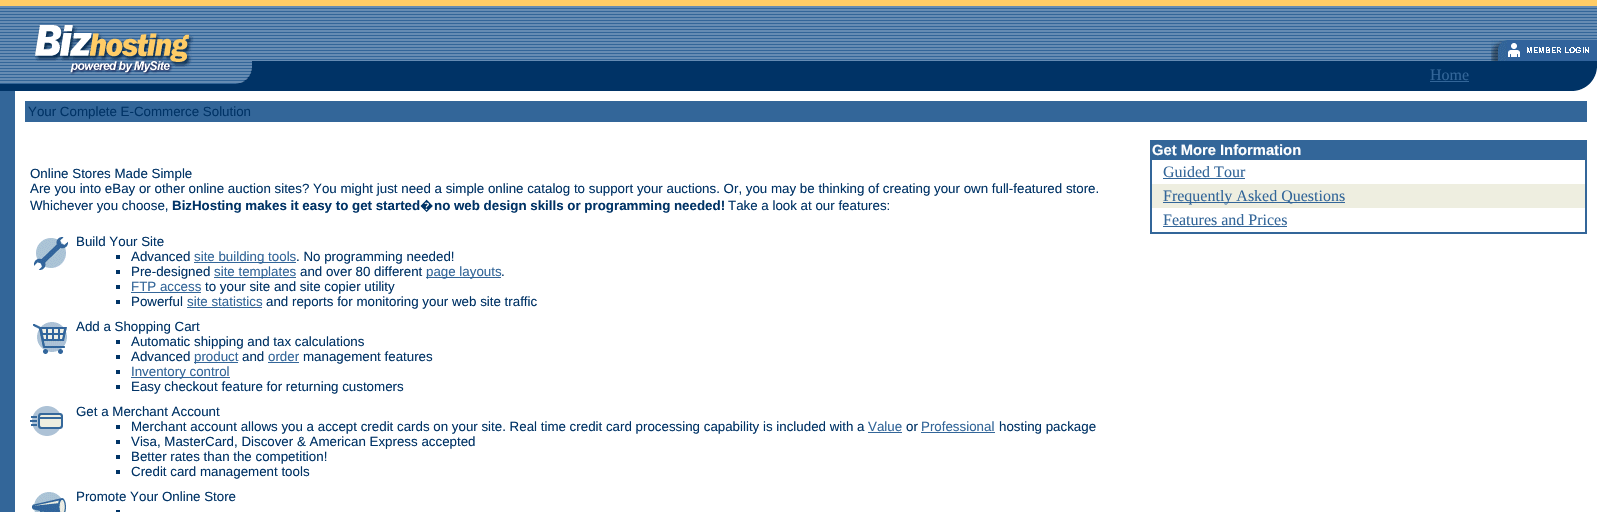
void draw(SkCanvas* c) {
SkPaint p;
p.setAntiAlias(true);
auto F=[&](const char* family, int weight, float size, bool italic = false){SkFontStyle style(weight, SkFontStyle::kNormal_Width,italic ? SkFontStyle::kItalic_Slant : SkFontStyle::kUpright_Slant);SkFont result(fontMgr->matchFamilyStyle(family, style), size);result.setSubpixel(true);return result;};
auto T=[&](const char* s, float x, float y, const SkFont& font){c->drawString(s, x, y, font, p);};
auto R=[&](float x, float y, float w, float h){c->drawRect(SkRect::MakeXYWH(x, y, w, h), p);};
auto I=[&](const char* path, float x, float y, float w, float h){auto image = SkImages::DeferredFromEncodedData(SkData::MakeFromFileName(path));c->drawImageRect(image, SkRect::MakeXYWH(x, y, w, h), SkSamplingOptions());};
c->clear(0xffffcc66);
p.setColor(0xff003366);
R(0,61,1597,30);
I("1.png",0,6,252,78);
p.setColor(0xff336699);
R(252,38,1345,1);
I("2.png",252,6,1345,32);
I("3.png",252,39,1345,22);
I("4.png",1491,40,16,21);
I("5.png",1507,40,83,21);
p.setColor(0xff31639c);
R(1590,40,7,21);
auto f1 = F("Liberation Serif",400,16);
p.setColor(0xff336699);
T("Home",1430,80,f1);
R(1430,81,39,1);
I("6.png",1574,68,23,23);
R(0,91,15,421);
p.setColor(0xffffffff);
R(15,91,1582,421);
p.setColor(0xff336699);
R(25,101,1562,21);
auto f2 = F("Liberation Sans",400,13.33);
p.setColor(0xff003366);
T("Your Complete E-Commerce Solution",28,116,f2);
T("Online Stores Made Simple",30,178,f2);
T("Are you into eBay or other online auction sites? You might just need a simple online catalog to support your auctions. Or, you may be thinking of creating your own full-featured store.",30,193,f2);
T("Whichever you choose,",30,210,f2);
auto f3 = F("Liberation Sans",700,13.33);
T("BizHosting makes it easy to get started",172,210,f3);
auto f4 = F("Noto Sans",700,13.33);
T("�",420,210,f4);
T("no web design skills or programming needed!",434,210,f3);
T("Take a look at our features:",728,210,f2);
I("7.png",34,237,34,33);
T("Build Your Site",76,246,f2);
R(116,255,4,4);
T("Advanced",131,261,f2);
p.setColor(0xff336699);
R(194,262,102,1);
T("site building tools",194,261,f2);
p.setColor(0xff003366);
T(". No programming needed!",296,261,f2);
R(116,270,4,4);
T("Pre-designed",131,276,f2);
p.setColor(0xff336699);
R(214,277,82,1);
T("site templates",214,276,f2);
p.setColor(0xff003366);
T("and over 80 different",300,276,f2);
p.setColor(0xff336699);
R(426,277,75,1);
T("page layouts",426,276,f2);
p.setColor(0xff003366);
T(".",501,276,f2);
R(116,285,4,4);
p.setColor(0xff336699);
T("FTP access",131,291,f2);
R(131,292,70,1);
p.setColor(0xff003366);
T("to your site and site copier utility",205,291,f2);
R(116,300,4,4);
T("Powerful",131,306,f2);
p.setColor(0xff336699);
T("site statistics",187,306,f2);
R(187,307,75,1);
p.setColor(0xff003366);
T("and reports for monitoring your web site traffic",266,306,f2);
I("8.png",33,322,34,32);
T("Add a Shopping Cart",76,331,f2);
R(116,340,4,4);
T("Automatic shipping and tax calculations",131,346,f2);
R(116,355,4,4);
T("Advanced",131,361,f2);
p.setColor(0xff336699);
R(194,362,44,1);
T("product",194,361,f2);
p.setColor(0xff003366);
T("and",242,361,f2);
p.setColor(0xff336699);
T("order",268,361,f2);
R(268,362,31,1);
p.setColor(0xff003366);
T("management features",303,361,f2);
R(116,370,4,4);
p.setColor(0xff336699);
R(131,377,99,1);
T("Inventory control",131,376,f2);
p.setColor(0xff003366);
R(116,385,4,4);
T("Easy checkout feature for returning customers",131,391,f2);
I("9.png",30,406,33,30);
T("Get a Merchant Account",76,416,f2);
R(116,425,4,4);
T("Merchant account allows you a accept credit cards on your site. Real time credit card processing capability is included with a",131,431,f2);
p.setColor(0xff336699);
T("Value",868,431,f2);
R(868,432,34,1);
p.setColor(0xff003366);
T("or",906,431,f2);
p.setColor(0xff336699);
T("Professional",921,431,f2);
R(921,432,74,1);
p.setColor(0xff003366);
T("hosting package",999,431,f2);
R(116,440,4,4);
T("Visa, MasterCard, Discover & American Express accepted",131,446,f2);
R(116,455,4,4);
T("Better rates than the competition!",131,461,f2);
R(116,470,4,4);
T("Credit card management tools",131,476,f2);
I("10.png",32,492,34,20);
T("Promote Your Online Store",76,501,f2);
R(116,510,4,2);
p.setStroke(true);
p.setStrokeWidth(1);
p.setColor(0xff336699);
c->drawRect(SkRect::MakeXYWH(1150.5,140.5,436,93),p);
p.setStroke(false);
R(1151,141,435,18);
auto f5 = F("Liberation Sans",700,14.75);
p.setColor(0xffffffff);
T("Get More Information",1152,155,f5);
p.setStroke(true);
p.setColor(0xff336699);
c->drawRect(SkRect::MakeXYWH(1151.5,159.5,434,73),p);
p.setStroke(false);
T("Guided Tour",1163,177,f1);
R(1163,178,82,1);
p.setColor(0xffeeeee0);
R(1152,184,433,24);
p.setColor(0xff336699);
R(1163,202,182,1);
T("Frequently Asked Questions",1163,201,f1);
T("Features and Prices",1163,225,f1);
R(1163,226,124,1);
}
